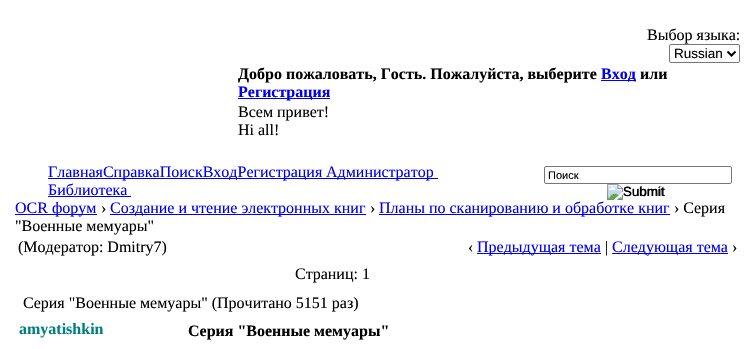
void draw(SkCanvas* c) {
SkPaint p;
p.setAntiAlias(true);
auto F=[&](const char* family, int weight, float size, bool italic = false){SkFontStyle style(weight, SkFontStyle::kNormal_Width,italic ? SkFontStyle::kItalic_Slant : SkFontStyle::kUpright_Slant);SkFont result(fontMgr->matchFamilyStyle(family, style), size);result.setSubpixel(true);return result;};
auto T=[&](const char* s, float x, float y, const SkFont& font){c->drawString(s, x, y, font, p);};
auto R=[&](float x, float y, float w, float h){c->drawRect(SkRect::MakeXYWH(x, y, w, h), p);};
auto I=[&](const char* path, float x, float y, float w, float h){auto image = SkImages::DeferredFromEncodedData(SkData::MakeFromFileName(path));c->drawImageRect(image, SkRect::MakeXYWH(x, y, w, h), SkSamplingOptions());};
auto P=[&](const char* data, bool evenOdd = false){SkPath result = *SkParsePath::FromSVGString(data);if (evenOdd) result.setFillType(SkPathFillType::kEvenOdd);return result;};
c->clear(0xffffffff);
auto f1 = F("Liberation Serif",400,16);
p.setColor(0xff000000);
T("Выбор языка:",647,40,f1);
p.setStroke(true);
p.setStrokeWidth(1);
p.setColor(0xff767676);
c->drawRoundRect(SkRect::MakeXYWH(669.5,44.5,70,18),1.5,1.5,p);
p.setStrokeWidth(2);
p.setColor(0xff000000);
c->drawPath(P("M727.5 51.5l4 4l4-4"),p);
auto f2 = F("Liberation Sans",400,13.5);
p.setStroke(false);
T("Russian",674,58,f2);
auto f3 = F("Liberation Serif",700,16);
T("Добро пожаловать, Гость. Пожалуйста, выберите",238,79,f3);
p.setColor(0xff0000ee);
R(601,80,35,1);
T("Вход",601,79,f3);
p.setColor(0xff000000);
T("или",640,79,f3);
p.setColor(0xff0000ee);
R(238,98,92,1);
T("Регистрация",238,97,f3);
p.setColor(0xff000000);
T("Всем привет!",238,117,f1);
T("Hi all!",238,135,f1);
p.setColor(0xff0000ee);
R(48,178,274,1);
T("ГлавнаяСправкаПоискВходРегистрация",48,177,f1);
R(322,178,116,1);
T("Администратор",326,177,f1);
T("Библиотека",48,195,f1);
R(48,196,83,1);
p.setStroke(true);
p.setStrokeWidth(1);
p.setColor(0xff767676);
c->drawRoundRect(SkRect::MakeXYWH(544.5,166.5,187,17),1.5,1.5,p);
auto f4 = F("Liberation Sans",400,11);
p.setStroke(false);
p.setColor(0xff000000);
T("Поиск",548,179,f4);
I("1.png",607,184,57,16);
T("Submit",623,196,f2);
p.setColor(0xff0000ee);
R(15,214,82,1);
T("OCR форум",15,213,f1);
p.setColor(0xff000000);
T("›",101,213,f1);
p.setColor(0xff0000ee);
R(110,214,256,1);
T("Создание и чтение электронных книг",110,213,f1);
p.setColor(0xff000000);
T("›",370,213,f1);
p.setColor(0xff0000ee);
R(379,214,291,1);
T("Планы по сканированию и обработке книг",379,213,f1);
p.setColor(0xff000000);
T("› Серия",674,213,f1);
T("\"Военные мемуары\"",15,231,f1);
T("(Модератор: Dmitry7)",18,252,f1);
T("‹",468,252,f1);
p.setColor(0xff0000ee);
R(477,253,124,1);
T("Предыдущая тема",477,252,f1);
p.setColor(0xff000000);
T("|",605,252,f1);
p.setColor(0xff0000ee);
R(612,253,116,1);
T("Следующая тема",612,252,f1);
p.setColor(0xff000000);
T("›",732,252,f1);
T("Страниц: 1",295,279,f1);
T("Серия \"Военные мемуары\" (Прочитано 5151 раз)",23,308,f1);
p.setColor(0xff008080);
T("amyatishkin",19,334,f3);
p.setColor(0xff000000);
T("Серия \"Военные мемуары\"",188,336,f3);
}
